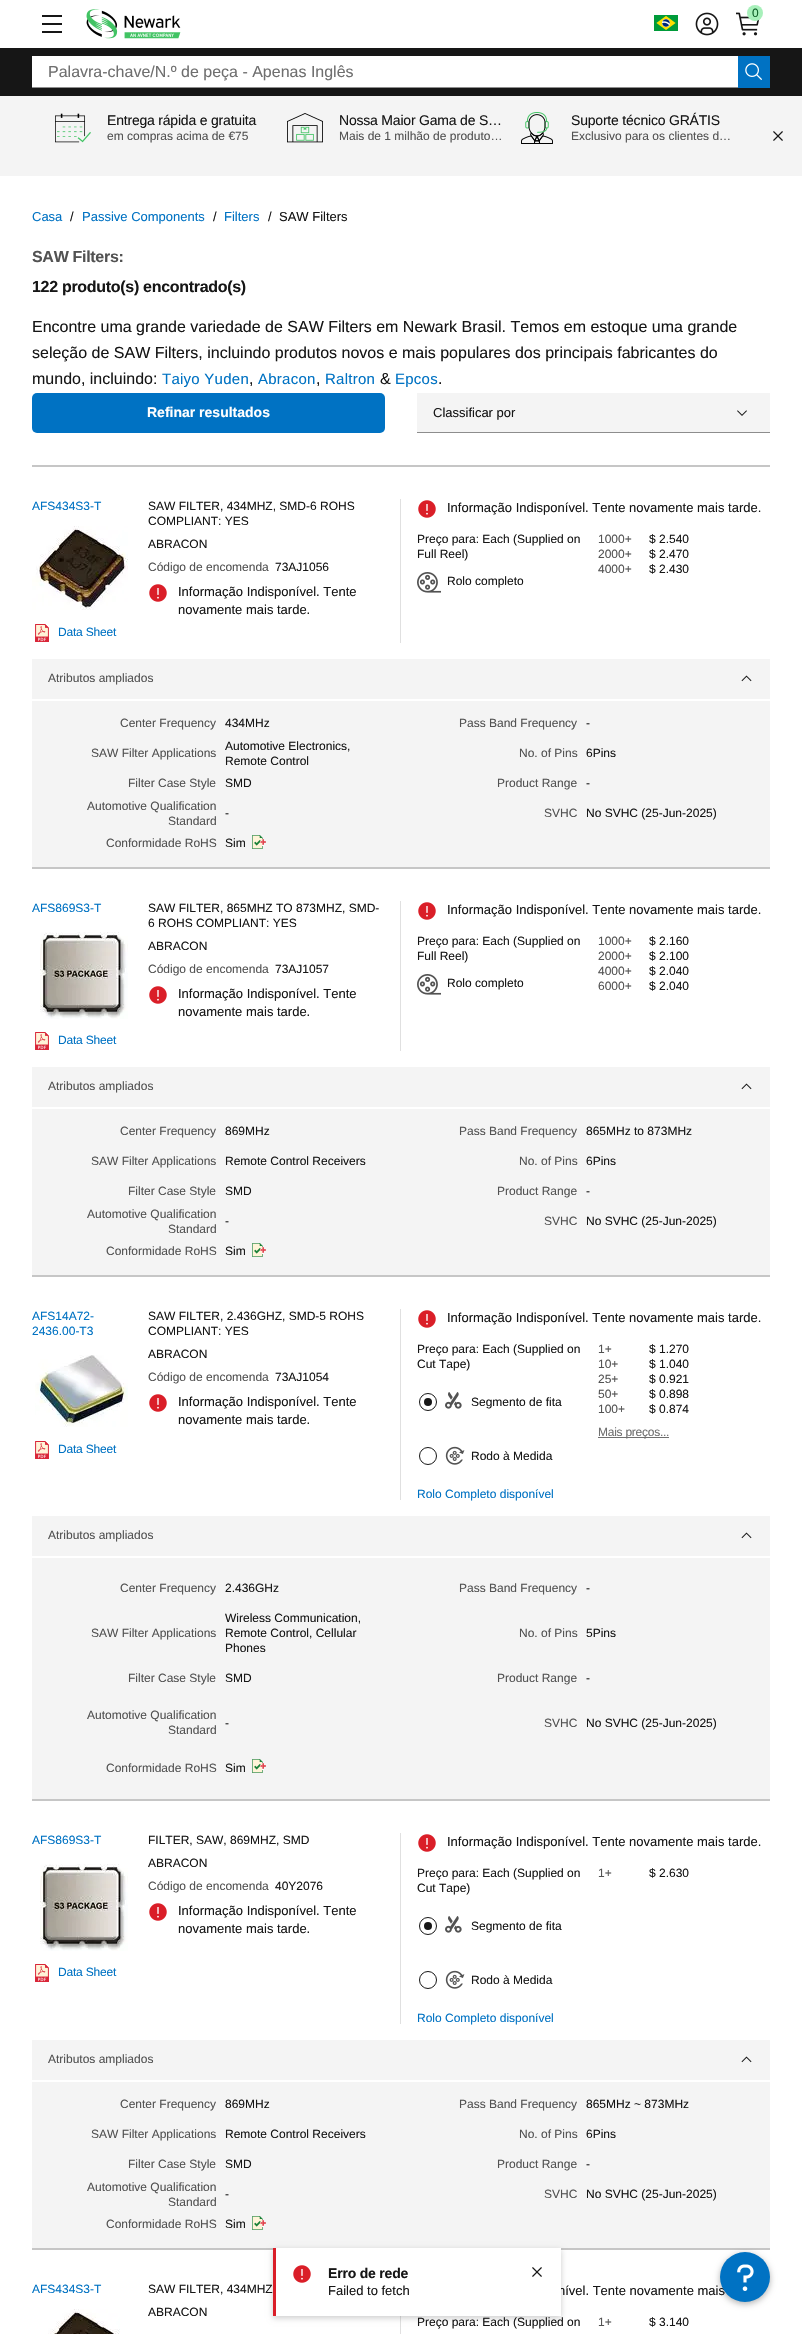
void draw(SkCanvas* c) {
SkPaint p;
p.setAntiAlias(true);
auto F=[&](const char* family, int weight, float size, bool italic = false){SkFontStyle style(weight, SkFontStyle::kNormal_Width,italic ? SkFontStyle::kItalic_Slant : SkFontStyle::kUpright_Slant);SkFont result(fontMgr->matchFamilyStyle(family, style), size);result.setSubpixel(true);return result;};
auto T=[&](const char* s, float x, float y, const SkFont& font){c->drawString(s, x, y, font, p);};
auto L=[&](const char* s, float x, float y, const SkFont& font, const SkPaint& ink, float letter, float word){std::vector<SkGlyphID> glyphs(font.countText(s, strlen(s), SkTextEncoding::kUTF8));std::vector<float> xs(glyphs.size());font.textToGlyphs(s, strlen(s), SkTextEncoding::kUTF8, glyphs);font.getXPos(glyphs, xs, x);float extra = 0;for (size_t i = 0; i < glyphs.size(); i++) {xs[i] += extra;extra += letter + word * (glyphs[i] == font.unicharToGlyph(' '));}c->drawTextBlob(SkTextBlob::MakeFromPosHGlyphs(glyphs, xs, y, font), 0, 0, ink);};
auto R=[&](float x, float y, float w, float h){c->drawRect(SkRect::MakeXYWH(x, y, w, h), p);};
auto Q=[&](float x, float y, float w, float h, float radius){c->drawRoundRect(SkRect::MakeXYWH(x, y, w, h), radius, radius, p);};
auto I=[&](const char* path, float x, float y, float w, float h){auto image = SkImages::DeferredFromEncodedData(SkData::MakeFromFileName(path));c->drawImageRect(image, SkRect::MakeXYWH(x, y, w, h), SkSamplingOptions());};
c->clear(0xffffffff);
p.setColor(0xff161616);
R(42,15,20,2);
R(42,23,20,2);
R(42,31,20,2);
I("1.png",86,9,95,30);
I("2.png",654,15,24,16);
I("3.png",695,12,24,24);
I("4.png",736,12,24,24);
p.setColor(0xffa7f0ba);
c->drawCircle(755,13,8,p);
auto f1 = F("Liberation Sans",400,12);
p.setColor(0xff0e6027);
T("0",752,17,f1);
p.setColor(0xff161616);
R(0,48,802,48);
p.setColor(0xffffffff);
R(32,56,706,31);
p.setColor(0xff8d8d8d);
R(32,87,706,1);
auto f2 = F("Liberation Sans",400,16);
p.setColor(0xff6f6f6f);
T("Palavra-chave/N.º de peça - Apenas Inglês",48,77,f2);
p.setColor(0xff0072c3);
R(738,56,32,32);
I("5.png",745,63,17,17);
p.setColor(0xfff4f4f4);
R(0,96,802,80);
I("6.png",55,113,36,30);
auto f3 = F("Liberation Sans",400,14);
p.setColor(0xff161616);
L("Entrega rápida e gratuita",107,125,f3,p,-.2,0);
p.setColor(0xff525252);
T("em compras acima de €75",107,140,f1);
I("7.png",287,113,36,30);
p.setColor(0xff161616);
L("Nossa Maior Gama de S…",339,125,f3,p,-.2,0);
p.setColor(0xff525252);
T("Mais de 1 milhão de produto…",339,140,f1);
I("8.png",521,112,32,32);
p.setColor(0xff161616);
L("Suporte técnico GRÁTIS",571,125,f3,p,-.2,0);
p.setColor(0xff525252);
T("Exclusivo para os clientes d…",571,140,f1);
I("9.png",773,131,10,10);
auto f4 = F("Liberation Sans",400,13);
p.setColor(0xff0072c3);
T("Casa",32,221,f4);
p.setColor(0xff161616);
T("/",70,221,f4);
p.setColor(0xff0072c3);
T("Passive Components",82,221,f4);
p.setColor(0xff161616);
T("/",213,221,f4);
p.setColor(0xff0072c3);
T("Filters",224,221,f4);
p.setColor(0xff161616);
T("/",268,221,f4);
T("SAW Filters",279,221,f4);
auto f5 = F("Liberation Sans",700,16);
p.setColor(0xff525252);
L("SAW Filters:",32,262,f5,p,-.3,0);
p.setColor(0xff161616);
L("122 produto(s) encontrado(s)",32,292,f5,p,-.3,0);
T("Encontre uma grande variedade de SAW Filters em Newark Brasil. Temos em estoque uma grande",32,332,f2);
T("seleção de SAW Filters, incluindo produtos novos e mais populares dos principais fabricantes do",32,358,f2);
T("mundo, incluindo:",32,384,f2);
auto f6 = F("Liberation Sans",400,15);
p.setColor(0xff0072c3);
L("Taiyo Yuden",162,384,f6,p,.25,0);
p.setColor(0xff161616);
T(",",249,384,f2);
p.setColor(0xff0072c3);
L("Abracon",258,384,f6,p,.25,0);
p.setColor(0xff161616);
T(",",316,384,f2);
p.setColor(0xff0072c3);
L("Raltron",325,384,f6,p,.25,0);
p.setColor(0xff161616);
T("&",380,384,f2);
p.setColor(0xff0072c3);
L("Epcos",395,384,f6,p,.25,0);
p.setColor(0xff161616);
T(".",438,384,f2);
p.setColor(0xff0072c3);
Q(32,393,353,40,5);
auto f7 = F("Liberation Sans",700,14);
p.setColor(0xffffffff);
T("Refinar resultados",147,417,f7);
p.setColor(0xfff4f4f4);
R(417,393,353,39);
p.setColor(0xff8d8d8d);
R(417,432,353,1);
p.setColor(0xff161616);
T("Classificar por",433,417,f4);
I("10.png",737,410,10,6);
p.setColor(0xffc6c6c6);
R(32,465,738,2);
p.setColor(0xff0072c3);
T("AFS434S3-T",32,510,f1);
I("11.png",32,526,96,84);
I("12.png",35,624,14,18);
L("Data Sheet",58,636,f1,p,-.2,0);
p.setColor(0xffe0e0e0);
R(400,499,1,144);
p.setColor(0xff161616);
T("SAW FILTER, 434MHZ, SMD-6 ROHS",148,510,f1);
T("COMPLIANT: YES",148,525,f1);
T("ABRACON",148,548,f1);
p.setColor(0xff525252);
T("Código de encomenda",148,571,f1);
p.setColor(0xff161616);
T("73AJ1056",275,571,f1);
I("13.png",149,584,18,18);
T("Informação Indisponível. Tente",178,596,f4);
T("novamente mais tarde.",178,614,f4);
I("13.png",418,500,18,18);
T("Informação Indisponível. Tente novamente mais tarde.",447,512,f4);
T("Preço para: Each (Supplied on",417,543,f1);
T("Full Reel)",417,558,f1);
I("14.png",417,572,24,21);
T("Rolo completo",447,585,f1);
p.setColor(0xff525252);
T("1000+",598,543,f1);
p.setColor(0xff161616);
T("$ 2.540",649,543,f1);
p.setColor(0xff525252);
T("2000+",598,558,f1);
p.setColor(0xff161616);
T("$ 2.470",649,558,f1);
p.setColor(0xff525252);
T("4000+",598,573,f1);
p.setColor(0xff161616);
T("$ 2.430",649,573,f1);
p.setColor(0xfff4f4f4);
R(32,659,738,208);
p.setColor(0xff525252);
T("Atributos ampliados",48,682,f1);
I("15.png",741,675,11,7);
p.setColor(0xffffffff);
R(32,699,738,2);
p.setColor(0xff525252);
T("Center Frequency",120,727,f1);
p.setColor(0xff161616);
T("434MHz",225,727,f1);
p.setColor(0xff525252);
T("Pass Band Frequency",459,727,f1);
p.setColor(0xff161616);
T("-",586,727,f1);
p.setColor(0xff525252);
T("SAW Filter Applications",91,757,f1);
p.setColor(0xff161616);
T("Automotive Electronics,",225,750,f1);
T("Remote Control",225,765,f1);
p.setColor(0xff525252);
T("No. of Pins",519,757,f1);
p.setColor(0xff161616);
T("6Pins",586,757,f1);
p.setColor(0xff525252);
T("Filter Case Style",128,787,f1);
p.setColor(0xff161616);
T("SMD",225,787,f1);
p.setColor(0xff525252);
T("Product Range",497,787,f1);
p.setColor(0xff161616);
T("-",586,787,f1);
p.setColor(0xff525252);
T("Automotive Qualification",87,810,f1);
T("Standard",168,825,f1);
p.setColor(0xff161616);
T("-",225,817,f1);
p.setColor(0xff525252);
T("SVHC",544,817,f1);
p.setColor(0xff161616);
T("No SVHC (25-Jun-2025)",586,817,f1);
p.setColor(0xff525252);
T("Conformidade RoHS",106,847,f1);
p.setColor(0xff161616);
T("Sim",225,847,f1);
I("16.png",252,835,14,14);
p.setColor(0xffc6c6c6);
R(32,867,738,2);
p.setColor(0xff0072c3);
T("AFS869S3-T",32,912,f1);
I("17.png",40,932,88,87);
I("12.png",35,1032,14,18);
L("Data Sheet",58,1044,f1,p,-.2,0);
p.setColor(0xffe0e0e0);
R(400,901,1,150);
p.setColor(0xff161616);
T("SAW FILTER, 865MHZ TO 873MHZ, SMD-",148,912,f1);
T("6 ROHS COMPLIANT: YES",148,927,f1);
T("ABRACON",148,950,f1);
p.setColor(0xff525252);
T("Código de encomenda",148,973,f1);
p.setColor(0xff161616);
T("73AJ1057",275,973,f1);
I("13.png",149,986,18,18);
T("Informação Indisponível. Tente",178,998,f4);
T("novamente mais tarde.",178,1016,f4);
I("13.png",418,902,18,18);
T("Informação Indisponível. Tente novamente mais tarde.",447,914,f4);
T("Preço para: Each (Supplied on",417,945,f1);
T("Full Reel)",417,960,f1);
I("14.png",417,974,24,21);
T("Rolo completo",447,987,f1);
p.setColor(0xff525252);
T("1000+",598,945,f1);
p.setColor(0xff161616);
T("$ 2.160",649,945,f1);
p.setColor(0xff525252);
T("2000+",598,960,f1);
p.setColor(0xff161616);
T("$ 2.100",649,960,f1);
p.setColor(0xff525252);
T("4000+",598,975,f1);
p.setColor(0xff161616);
T("$ 2.040",649,975,f1);
p.setColor(0xff525252);
T("6000+",598,990,f1);
p.setColor(0xff161616);
T("$ 2.040",649,990,f1);
p.setColor(0xfff4f4f4);
R(32,1067,738,208);
p.setColor(0xff525252);
T("Atributos ampliados",48,1090,f1);
I("15.png",741,1083,11,7);
p.setColor(0xffffffff);
R(32,1107,738,2);
p.setColor(0xff525252);
T("Center Frequency",120,1135,f1);
p.setColor(0xff161616);
T("869MHz",225,1135,f1);
p.setColor(0xff525252);
T("Pass Band Frequency",459,1135,f1);
p.setColor(0xff161616);
T("865MHz to 873MHz",586,1135,f1);
p.setColor(0xff525252);
T("SAW Filter Applications",91,1165,f1);
p.setColor(0xff161616);
T("Remote Control Receivers",225,1165,f1);
p.setColor(0xff525252);
T("No. of Pins",519,1165,f1);
p.setColor(0xff161616);
T("6Pins",586,1165,f1);
p.setColor(0xff525252);
T("Filter Case Style",128,1195,f1);
p.setColor(0xff161616);
T("SMD",225,1195,f1);
p.setColor(0xff525252);
T("Product Range",497,1195,f1);
p.setColor(0xff161616);
T("-",586,1195,f1);
p.setColor(0xff525252);
T("Automotive Qualification",87,1218,f1);
T("Standard",168,1233,f1);
p.setColor(0xff161616);
T("-",225,1225,f1);
p.setColor(0xff525252);
T("SVHC",544,1225,f1);
p.setColor(0xff161616);
T("No SVHC (25-Jun-2025)",586,1225,f1);
p.setColor(0xff525252);
T("Conformidade RoHS",106,1255,f1);
p.setColor(0xff161616);
T("Sim",225,1255,f1);
I("16.png",252,1243,14,14);
p.setColor(0xffc6c6c6);
R(32,1275,738,2);
p.setColor(0xff0072c3);
T("AFS14A72-",32,1320,f1);
T("2436.00-T3",32,1335,f1);
I("18.png",35,1355,93,72);
I("12.png",35,1441,14,18);
L("Data Sheet",58,1453,f1,p,-.2,0);
p.setColor(0xffe0e0e0);
R(400,1309,1,191);
p.setColor(0xff161616);
T("SAW FILTER, 2.436GHZ, SMD-5 ROHS",148,1320,f1);
T("COMPLIANT: YES",148,1335,f1);
T("ABRACON",148,1358,f1);
p.setColor(0xff525252);
T("Código de encomenda",148,1381,f1);
p.setColor(0xff161616);
T("73AJ1054",275,1381,f1);
I("13.png",149,1394,18,18);
T("Informação Indisponível. Tente",178,1406,f4);
T("novamente mais tarde.",178,1424,f4);
I("13.png",418,1310,18,18);
T("Informação Indisponível. Tente novamente mais tarde.",447,1322,f4);
T("Preço para: Each (Supplied on",417,1353,f1);
T("Cut Tape)",417,1368,f1);
p.setStroke(true);
p.setStrokeWidth(1);
c->drawCircle(428,1402,8.5,p);
p.setStroke(false);
c->drawCircle(428,1402,4,p);
I("19.png",445,1392,17,17);
T("Segmento de fita",471,1406,f1);
p.setStroke(true);
c->drawCircle(428,1456,8.5,p);
I("20.png",445,1446,20,19);
p.setStroke(false);
T("Rodo à Medida",471,1460,f1);
p.setColor(0xff0072c3);
T("Rolo Completo disponível",417,1498,f1);
p.setColor(0xff525252);
T("1+",598,1353,f1);
p.setColor(0xff161616);
T("$ 1.270",649,1353,f1);
p.setColor(0xff525252);
T("10+",598,1368,f1);
p.setColor(0xff161616);
T("$ 1.040",649,1368,f1);
p.setColor(0xff525252);
T("25+",598,1383,f1);
p.setColor(0xff161616);
T("$ 0.921",649,1383,f1);
p.setColor(0xff525252);
T("50+",598,1398,f1);
p.setColor(0xff161616);
T("$ 0.898",649,1398,f1);
p.setColor(0xff525252);
T("100+",598,1413,f1);
p.setColor(0xff161616);
T("$ 0.874",649,1413,f1);
p.setColor(0xff6f6f6f);
R(598,1437,71,1);
L("Mais preços...",598,1436,f1,p,-.25,0);
p.setColor(0xfff4f4f4);
R(32,1516,738,283);
p.setColor(0xff525252);
T("Atributos ampliados",48,1539,f1);
I("15.png",741,1532,11,7);
p.setColor(0xffffffff);
R(32,1556,738,2);
p.setColor(0xff525252);
T("Center Frequency",120,1592,f1);
p.setColor(0xff161616);
T("2.436GHz",225,1592,f1);
p.setColor(0xff525252);
T("Pass Band Frequency",459,1592,f1);
p.setColor(0xff161616);
T("-",586,1592,f1);
p.setColor(0xff525252);
T("SAW Filter Applications",91,1637,f1);
p.setColor(0xff161616);
T("Wireless Communication,",225,1622,f1);
T("Remote Control, Cellular",225,1637,f1);
T("Phones",225,1652,f1);
p.setColor(0xff525252);
T("No. of Pins",519,1637,f1);
p.setColor(0xff161616);
T("5Pins",586,1637,f1);
p.setColor(0xff525252);
T("Filter Case Style",128,1682,f1);
p.setColor(0xff161616);
T("SMD",225,1682,f1);
p.setColor(0xff525252);
T("Product Range",497,1682,f1);
p.setColor(0xff161616);
T("-",586,1682,f1);
p.setColor(0xff525252);
T("Automotive Qualification",87,1719,f1);
T("Standard",168,1734,f1);
p.setColor(0xff161616);
T("-",225,1727,f1);
p.setColor(0xff525252);
T("SVHC",544,1727,f1);
p.setColor(0xff161616);
T("No SVHC (25-Jun-2025)",586,1727,f1);
p.setColor(0xff525252);
T("Conformidade RoHS",106,1772,f1);
p.setColor(0xff161616);
T("Sim",225,1772,f1);
I("16.png",252,1759,14,14);
p.setColor(0xffc6c6c6);
R(32,1799,738,2);
p.setColor(0xff0072c3);
T("AFS869S3-T",32,1844,f1);
I("17.png",40,1864,88,87);
I("12.png",35,1964,14,18);
L("Data Sheet",58,1976,f1,p,-.2,0);
p.setColor(0xffe0e0e0);
R(400,1833,1,191);
p.setColor(0xff161616);
T("FILTER, SAW, 869MHZ, SMD",148,1844,f1);
T("ABRACON",148,1867,f1);
p.setColor(0xff525252);
T("Código de encomenda",148,1890,f1);
p.setColor(0xff161616);
T("40Y2076",275,1890,f1);
I("13.png",149,1903,18,18);
T("Informação Indisponível. Tente",178,1915,f4);
T("novamente mais tarde.",178,1933,f4);
I("13.png",418,1834,18,18);
T("Informação Indisponível. Tente novamente mais tarde.",447,1846,f4);
T("Preço para: Each (Supplied on",417,1877,f1);
T("Cut Tape)",417,1892,f1);
p.setStroke(true);
c->drawCircle(428,1926,8.5,p);
p.setStroke(false);
c->drawCircle(428,1926,4,p);
I("19.png",445,1916,17,17);
T("Segmento de fita",471,1930,f1);
p.setStroke(true);
c->drawCircle(428,1980,8.5,p);
I("20.png",445,1970,20,19);
p.setStroke(false);
T("Rodo à Medida",471,1984,f1);
p.setColor(0xff0072c3);
T("Rolo Completo disponível",417,2022,f1);
p.setColor(0xff525252);
T("1+",598,1877,f1);
p.setColor(0xff161616);
T("$ 2.630",649,1877,f1);
p.setColor(0xfff4f4f4);
R(32,2040,738,208);
p.setColor(0xff525252);
T("Atributos ampliados",48,2063,f1);
I("15.png",741,2056,11,7);
p.setColor(0xffffffff);
R(32,2080,738,2);
p.setColor(0xff525252);
T("Center Frequency",120,2108,f1);
p.setColor(0xff161616);
T("869MHz",225,2108,f1);
p.setColor(0xff525252);
T("Pass Band Frequency",459,2108,f1);
p.setColor(0xff161616);
T("865MHz ~ 873MHz",586,2108,f1);
p.setColor(0xff525252);
T("SAW Filter Applications",91,2138,f1);
p.setColor(0xff161616);
T("Remote Control Receivers",225,2138,f1);
p.setColor(0xff525252);
T("No. of Pins",519,2138,f1);
p.setColor(0xff161616);
T("6Pins",586,2138,f1);
p.setColor(0xff525252);
T("Filter Case Style",128,2168,f1);
p.setColor(0xff161616);
T("SMD",225,2168,f1);
p.setColor(0xff525252);
T("Product Range",497,2168,f1);
p.setColor(0xff161616);
T("-",586,2168,f1);
p.setColor(0xff525252);
T("Automotive Qualification",87,2191,f1);
T("Standard",168,2206,f1);
p.setColor(0xff161616);
T("-",225,2198,f1);
p.setColor(0xff525252);
T("SVHC",544,2198,f1);
p.setColor(0xff161616);
T("No SVHC (25-Jun-2025)",586,2198,f1);
p.setColor(0xff525252);
T("Conformidade RoHS",106,2228,f1);
p.setColor(0xff161616);
T("Sim",225,2228,f1);
I("16.png",252,2216,14,14);
p.setColor(0xffc6c6c6);
R(32,2248,738,2);
p.setColor(0xff0072c3);
T("AFS434S3-T",32,2293,f1);
I("21.png",48,2309,72,25);
p.setColor(0xffe0e0e0);
R(400,2316,1,18);
p.setColor(0xff161616);
T("SAW FILTER, 434MHZ",148,2293,f1);
T("ABRACON",148,2316,f1);
T("nível. Tente novamente mais",558,2295,f4);
T("Preço para: Each (Supplied on",417,2326,f1);
p.setColor(0xff525252);
T("1+",598,2326,f1);
p.setColor(0xff161616);
T("$ 3.140",649,2326,f1);
p.setColor(0x33000000);
p.setMaskFilter(SkMaskFilter::MakeBlur(kNormal_SkBlurStyle, 3));
c->drawRect(SkRect::MakeXYWH(273,2250,288,68),p);
p.setMaskFilter(nullptr);
p.setColor(0xffffffff);
R(276,2248,285,68);
p.setColor(0xffda1e28);
R(273,2248,3,68);
I("13.png",293,2265,18,18);
p.setColor(0xff161616);
L("Erro de rede",328,2278,f7,p,-.2,0);
T("Failed to fetch",328,2295,f4);
I("22.png",532,2267,10,10);
p.setColor(0x4d000000);
p.setMaskFilter(SkMaskFilter::MakeBlur(kNormal_SkBlurStyle, 3));
c->drawRoundRect(SkRect::MakeXYWH(720,2254,50,50),25,25,p);
p.setMaskFilter(nullptr);
p.setColor(0xff0072c3);
c->drawCircle(745,2277,25,p);
I("23.png",737,2264,17,27);
}
